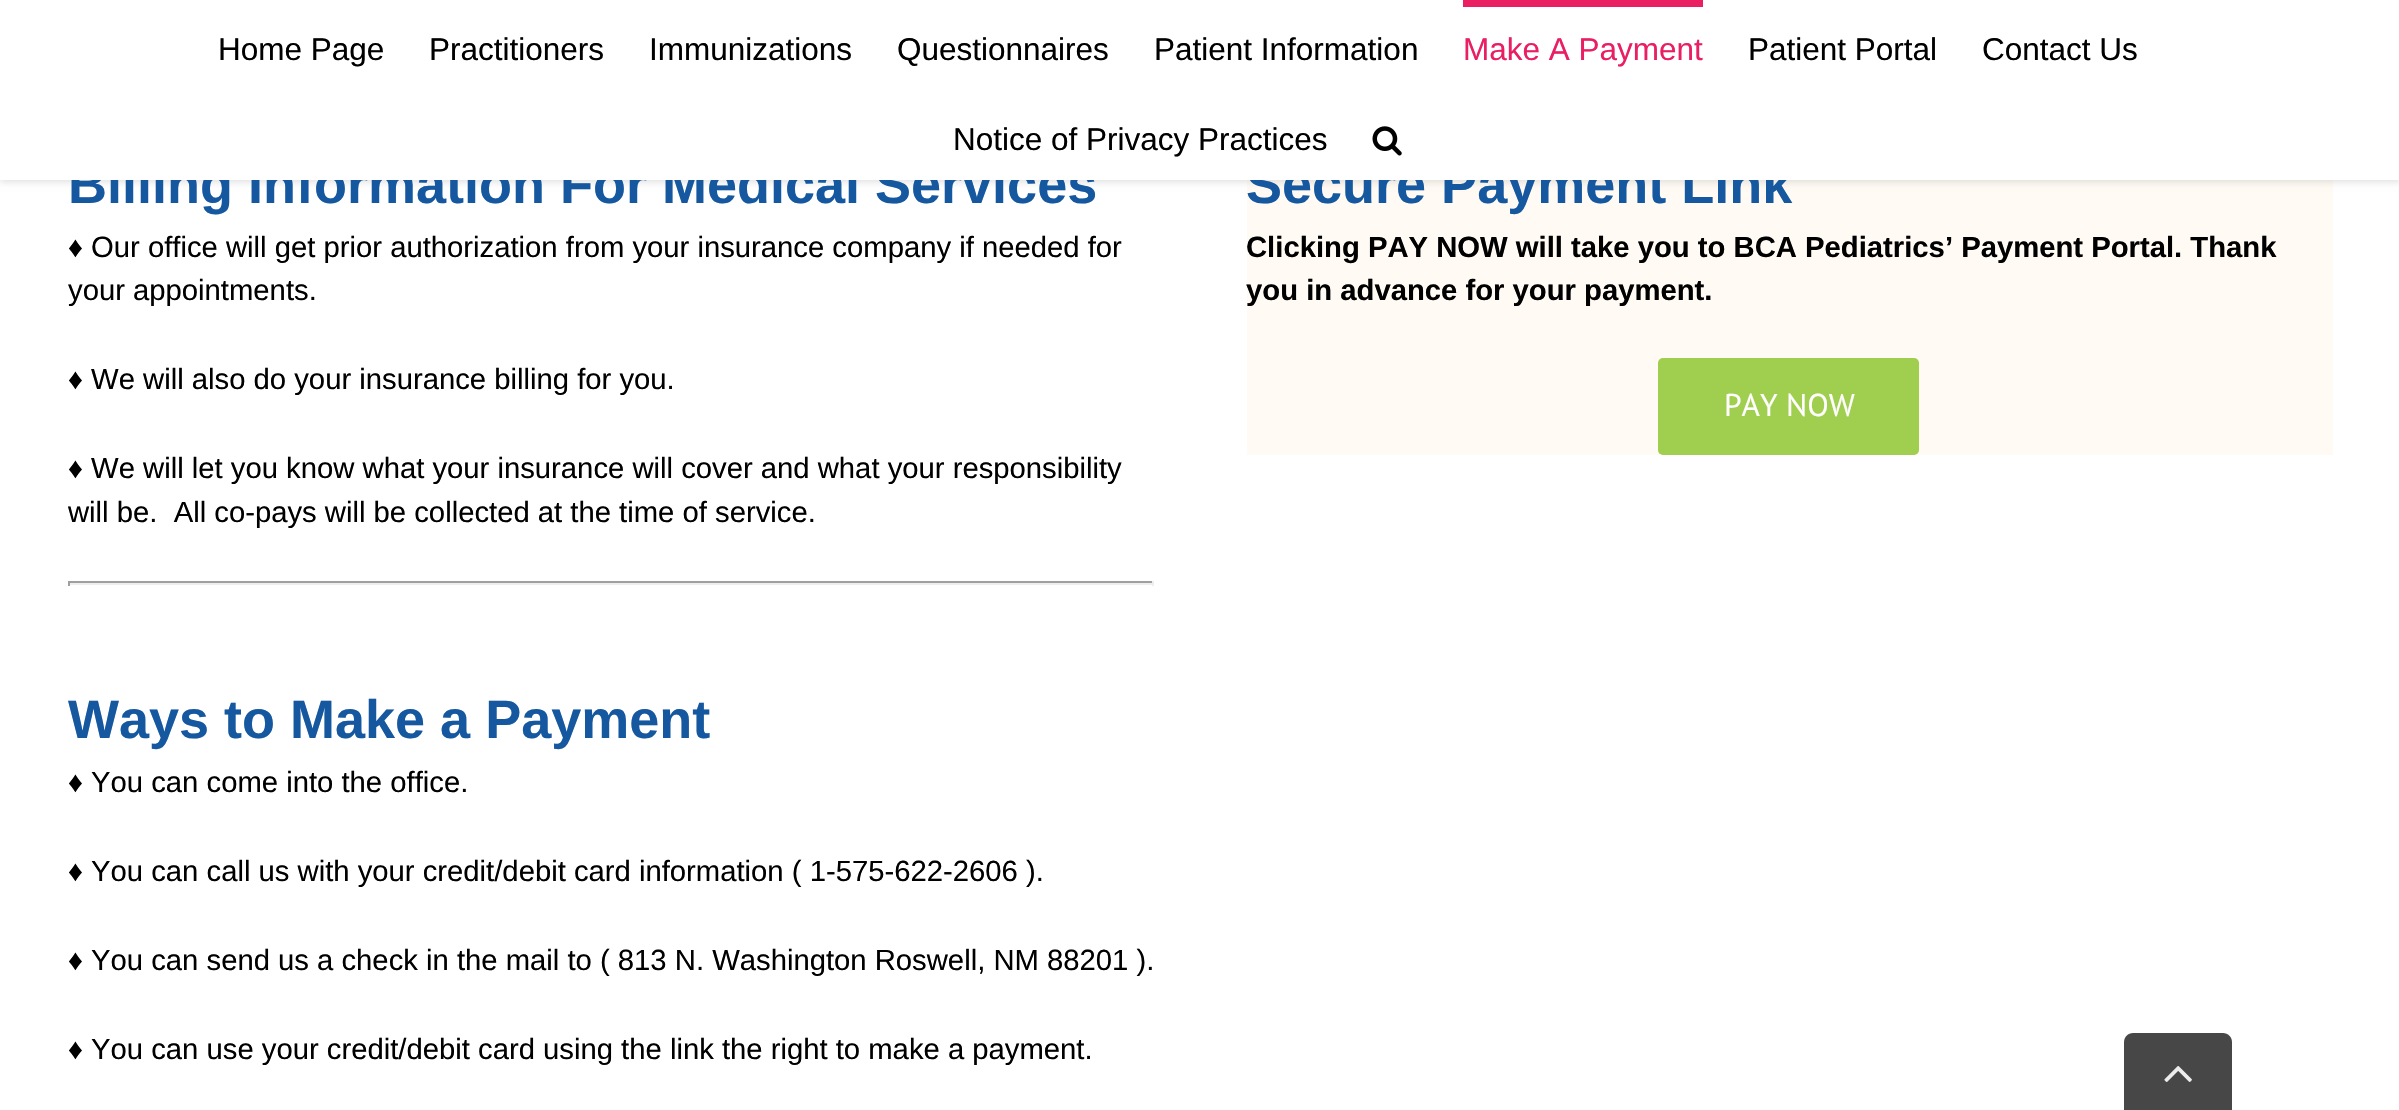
void draw(SkCanvas* c) {
SkPaint p;
p.setAntiAlias(true);
auto F=[&](const char* family, int weight, float size, bool italic = false){SkFontStyle style(weight, SkFontStyle::kNormal_Width,italic ? SkFontStyle::kItalic_Slant : SkFontStyle::kUpright_Slant);SkFont result(fontMgr->matchFamilyStyle(family, style), size);result.setSubpixel(true);return result;};
auto T=[&](const char* s, float x, float y, const SkFont& font){c->drawString(s, x, y, font, p);};
auto R=[&](float x, float y, float w, float h){c->drawRect(SkRect::MakeXYWH(x, y, w, h), p);};
auto Q=[&](float x, float y, float w, float h, float radius){c->drawRoundRect(SkRect::MakeXYWH(x, y, w, h), radius, radius, p);};
auto I=[&](const char* path, float x, float y, float w, float h){auto image = SkImages::DeferredFromEncodedData(SkData::MakeFromFileName(path));c->drawImageRect(image, SkRect::MakeXYWH(x, y, w, h), SkSamplingOptions());};
auto P=[&](const char* data, bool evenOdd = false){SkPath result = *SkParsePath::FromSVGString(data);if (evenOdd) result.setFillType(SkPathFillType::kEvenOdd);return result;};
c->clear(0xffffffff);
p.setColor(0xfffffbf4);
R(1247,180,1086,275);
p.setColor(0x1f000000);
p.setMaskFilter(SkMaskFilter::MakeBlur(kNormal_SkBlurStyle, 3.5));
c->drawRect(SkRect::MakeXYWH(0,2,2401,180),p);
p.setMaskFilter(nullptr);
auto f1 = F("Liberation Sans",700,54);
p.setColor(0xff1558a0);
T("Billing Information For Medical Services",68,203,f1);
T("Secure Payment Link",1246,203,f1);
p.setColor(0xffffffff);
R(0,0,2399,180);
auto f2 = F("Liberation Sans",400,31.5);
p.setColor(0xff000000);
T("Home Page",218,60,f2);
T("Practitioners",429,60,f2);
T("Immunizations",649,60,f2);
T("Questionnaires",897,60,f2);
T("Patient Information",1154,60,f2);
p.setColor(0xffe91e63);
R(1463,0,240,7);
T("Make A Payment",1463,60,f2);
p.setColor(0xff000000);
T("Patient Portal",1748,60,f2);
T("Contact Us",1982,60,f2);
T("Notice of Privacy Practices",953,150,f2);
I("1.png",1372,126,30,30);
auto f3 = F("Liberation Sans",400,29.25);
T("♦ Our office will get prior authorization from your insurance company if needed for",68,257,f3);
T("your appointments.",68,300,f3);
T("♦ We will also do your insurance billing for you.",68,389,f3);
T("♦ We will let you know what your insurance will cover and what your responsibility",68,478,f3);
T("will be.  All co-pays will be collected at the time of service.",68,522,f3);
p.setColor(0xff9f9f9f);
R(68,581,1086,2);
p.setColor(0xffeeeeee);
R(1152,581,2,5);
R(68,583,1086,2);
p.setColor(0xff9f9f9f);
R(68,581,2,5);
p.setColor(0xff1558a0);
T("Ways to Make a Payment",68,738,f1);
p.setColor(0xff000000);
T("♦ You can come into the office.",68,792,f3);
T("♦ You can call us with your credit/debit card information ( 1-575-622-2606 ).",68,881,f3);
T("♦ You can send us a check in the mail to ( 813 N. Washington Roswell, NM 88201 ).",68,970,f3);
T("♦ You can use your credit/debit card using the link the right to make a payment.",68,1059,f3);
auto f4 = F("Liberation Sans",700,29.25);
T("Clicking PAY NOW will take you to BCA Pediatrics’ Payment Portal. Thank",1246,257,f4);
T("you in advance for your payment.",1246,300,f4);
p.setColor(0xffa0ce4e);
Q(1658,358,261,97,5);
auto f5 = F("PT Sans",400,31.5);
p.setColor(0xffffffff);
T("PAY NOW",1724,416,f5);
p.setColor(0xff474747);
c->drawPath(P("M2133 1033h90c5 0 9 4 9 9v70h-108v-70c0-5 4-9 9-9z"),p);
I("2.png",2164,1066,28,16);
}
